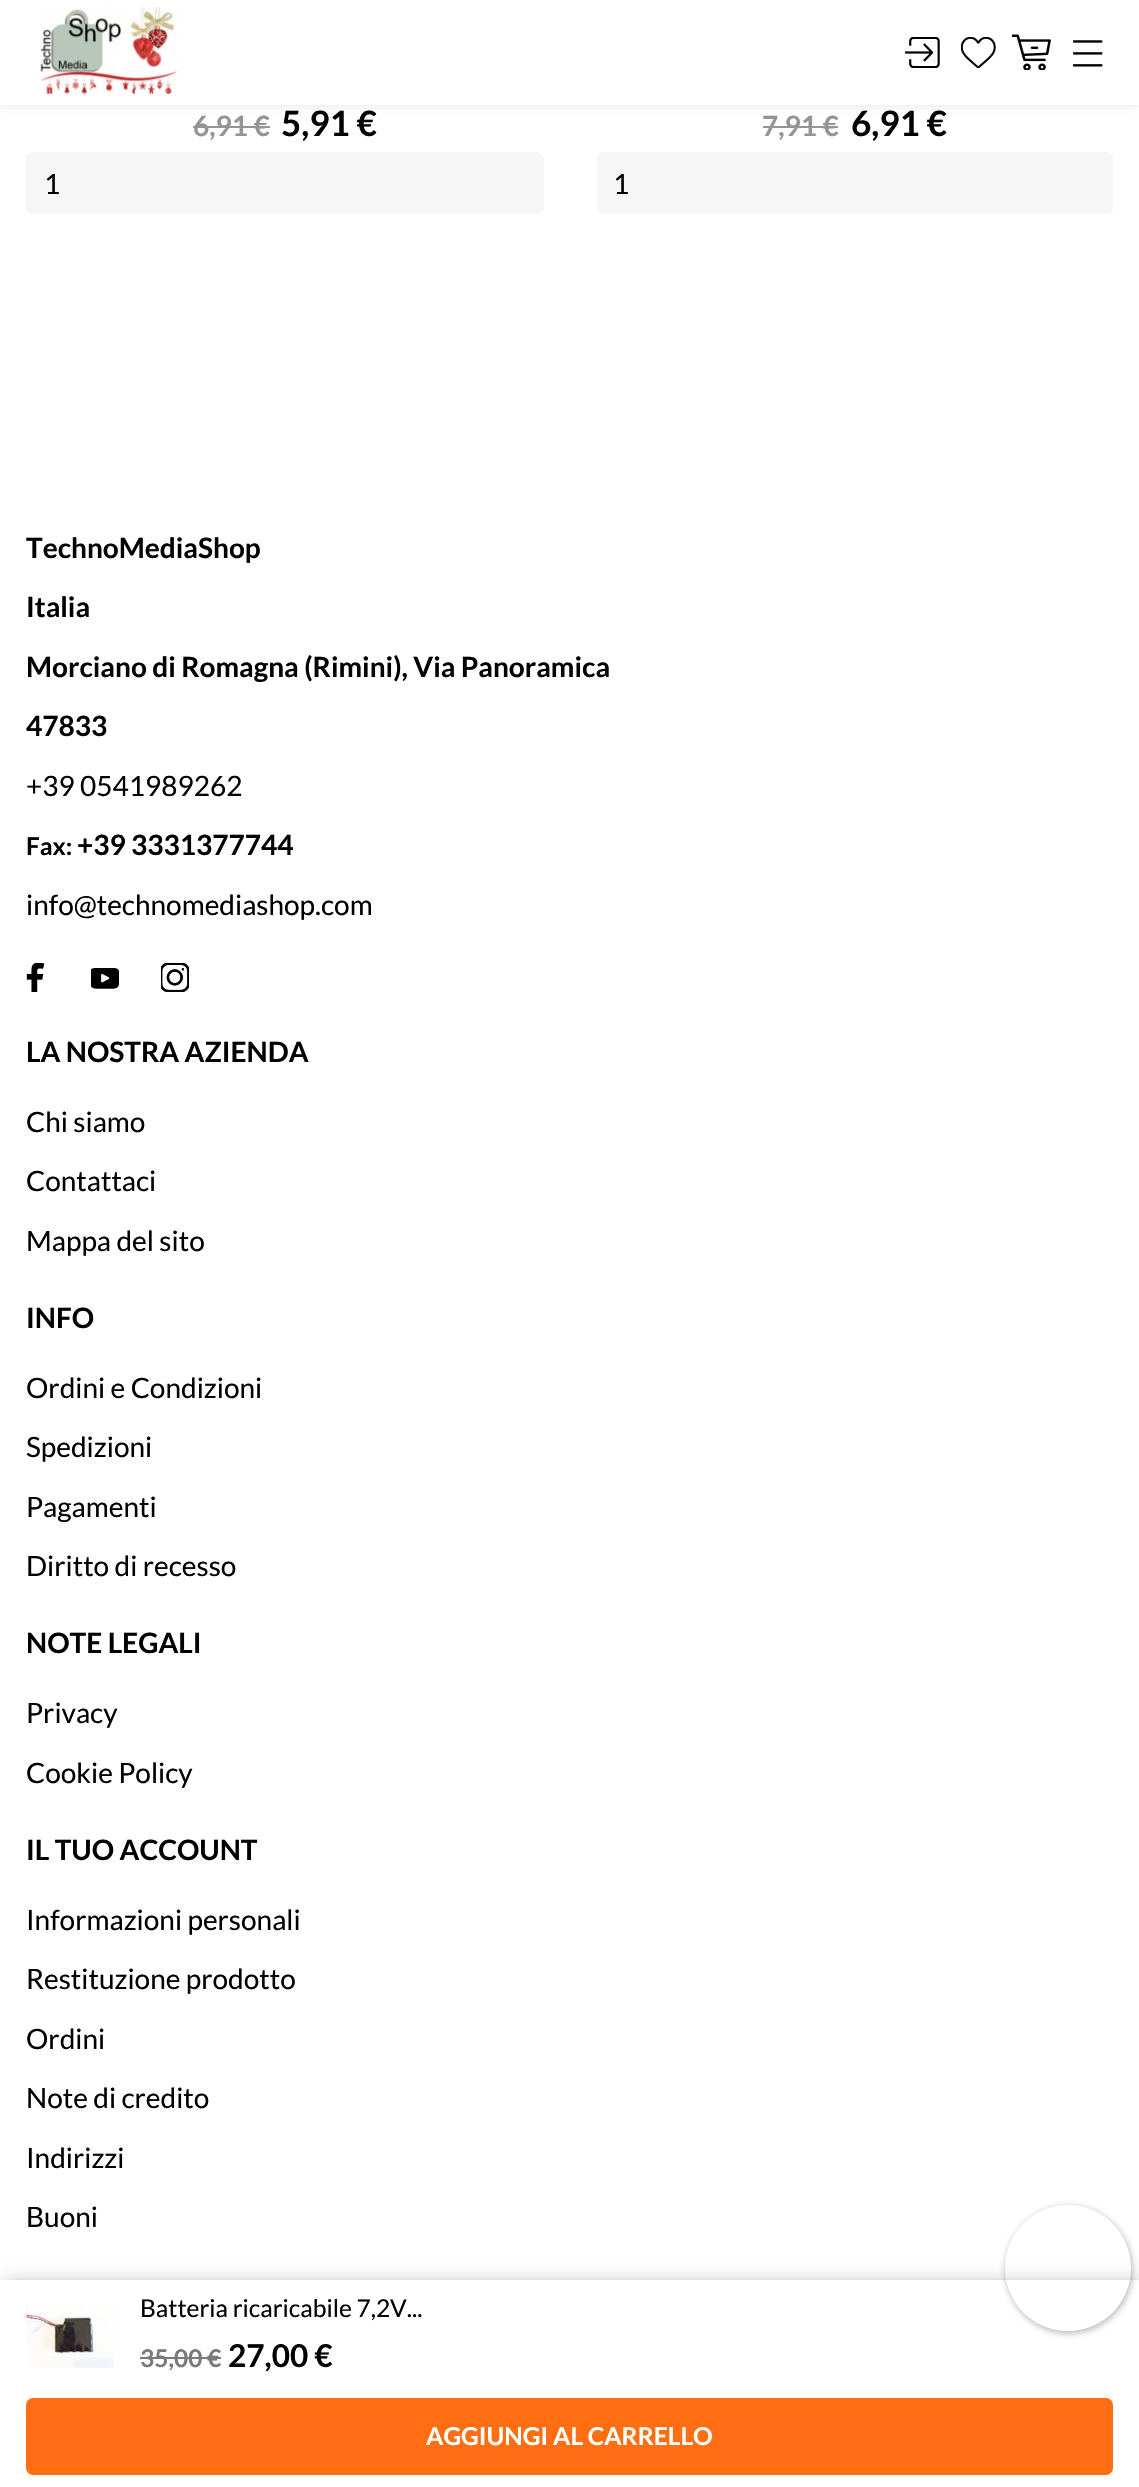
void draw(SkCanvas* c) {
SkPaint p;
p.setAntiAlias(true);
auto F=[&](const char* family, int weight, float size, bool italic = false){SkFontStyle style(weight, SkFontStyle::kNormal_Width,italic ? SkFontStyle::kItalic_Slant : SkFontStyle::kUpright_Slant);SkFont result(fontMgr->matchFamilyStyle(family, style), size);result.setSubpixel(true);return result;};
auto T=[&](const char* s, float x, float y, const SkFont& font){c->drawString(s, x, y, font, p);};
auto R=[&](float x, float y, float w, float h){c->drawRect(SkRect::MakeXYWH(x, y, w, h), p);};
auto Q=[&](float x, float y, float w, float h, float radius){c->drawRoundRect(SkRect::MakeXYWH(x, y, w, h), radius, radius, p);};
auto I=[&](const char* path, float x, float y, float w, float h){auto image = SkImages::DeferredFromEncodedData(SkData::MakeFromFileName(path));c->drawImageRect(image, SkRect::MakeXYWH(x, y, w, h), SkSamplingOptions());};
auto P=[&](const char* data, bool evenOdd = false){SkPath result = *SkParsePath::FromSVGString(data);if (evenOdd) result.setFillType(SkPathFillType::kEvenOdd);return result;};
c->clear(0xffffffff);
p.setColor(0x1a010101);
p.setMaskFilter(SkMaskFilter::MakeBlur(kNormal_SkBlurStyle, 5));
c->drawRect(SkRect::MakeXYWH(0,0,1139,105),p);
p.setMaskFilter(nullptr);
p.setColor(0xffffffff);
R(0,0,1139,105);
I("1.png",40,7,138,88);
I("2.png",905,37,35,31);
I("3.png",961,37,35,31);
I("4.png",1012,34,39,36);
I("5.png",1073,40,30,27);
auto f1 = F("Lato",700,28);
p.setColor(0xff949494);
T("6,91 €",193,136,f1);
R(193,126,77,2);
auto f2 = F("Lato",700,35);
p.setColor(0xff000000);
T("5,91 €",281,136,f2);
p.setColor(0xfff6f6f6);
Q(26,152,518,62,7);
auto f3 = F("Lato",400,28);
p.setColor(0xff000000);
T("1",44,194,f3);
p.setColor(0xff949494);
T("7,91 €",762,136,f1);
R(763,126,75,2);
p.setColor(0xff000000);
T("6,91 €",851,136,f2);
p.setColor(0xfff6f6f6);
Q(597,152,516,62,7);
p.setColor(0xff000000);
T("1",613,194,f3);
p.setColor(0x4d000000);
p.setMaskFilter(SkMaskFilter::MakeBlur(kNormal_SkBlurStyle, 9.5));
c->drawRect(SkRect::MakeXYWH(4,2284,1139,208),p);
p.setMaskFilter(nullptr);
p.setColor(0xffffffff);
R(0,2280,1139,207);
I("6.png",26,2304,88,64);
auto f4 = F("Lato",400,24.5);
p.setColor(0xff000000);
T("Batteria ricaricabile 7,2V...",140,2317,f4);
auto f5 = F("Lato",700,24.5);
p.setColor(0xff7a7a7a);
T("35,00 €",140,2367,f5);
R(140,2357,81,2);
auto f6 = F("Lato",700,31.5);
p.setColor(0xff000000);
T("27,00 €",228,2367,f6);
p.setColor(0xffff6e13);
Q(26,2398,1087,77,7);
p.setColor(0xffffffff);
T("AGGIUNGI AL CARRELLO",426,2445,f5);
p.setColor(0xff000000);
T("TechnoMediaShop",26,558,f1);
T("Italia",26,617,f1);
T("Morciano di Romagna (Rimini), Via Panoramica",26,677,f1);
T("47833",26,736,f1);
T("+39 0541989262",26,796,f3);
T("Fax:",26,855,f5);
T("+39 3331377744",77,855,f1);
T("info@technomediashop.com",26,915,f3);
I("7.png",26,963,19,29);
I("8.png",91,968,28,21);
I("9.png",161,963,28,29);
T("LA NOSTRA AZIENDA",26,1062,f1);
T("Chi siamo",26,1132,f3);
T("Contattaci",26,1191,f3);
T("Mappa del sito",26,1251,f3);
T("INFO",26,1328,f1);
T("Ordini e Condizioni",26,1398,f3);
T("Spedizioni",26,1457,f3);
T("Pagamenti",26,1517,f3);
T("Diritto di recesso",26,1576,f3);
T("NOTE LEGALI",26,1653,f1);
T("Privacy",26,1723,f3);
T("Cookie Policy",26,1783,f3);
T("IL TUO ACCOUNT",26,1860,f1);
T("Informazioni personali",26,1930,f3);
T("Restituzione prodotto",26,1989,f3);
T("Ordini",26,2049,f3);
T("Note di credito",26,2108,f3);
T("Indirizzi",26,2168,f3);
T("Buoni",26,2227,f3);
c->save();
c->clipPath(P("M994 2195h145v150h-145zm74 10c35 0 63 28 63 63c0 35-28 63-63 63c-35 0-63-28-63-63c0-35 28-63 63-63z",true),true);
p.setColor(0x663c3c3c);
p.setMaskFilter(SkMaskFilter::MakeBlur(kNormal_SkBlurStyle, 3.5));
c->drawRoundRect(SkRect::MakeXYWH(1006,2207,126,126),63,63,p);
p.setMaskFilter(nullptr);
c->restore();
}
